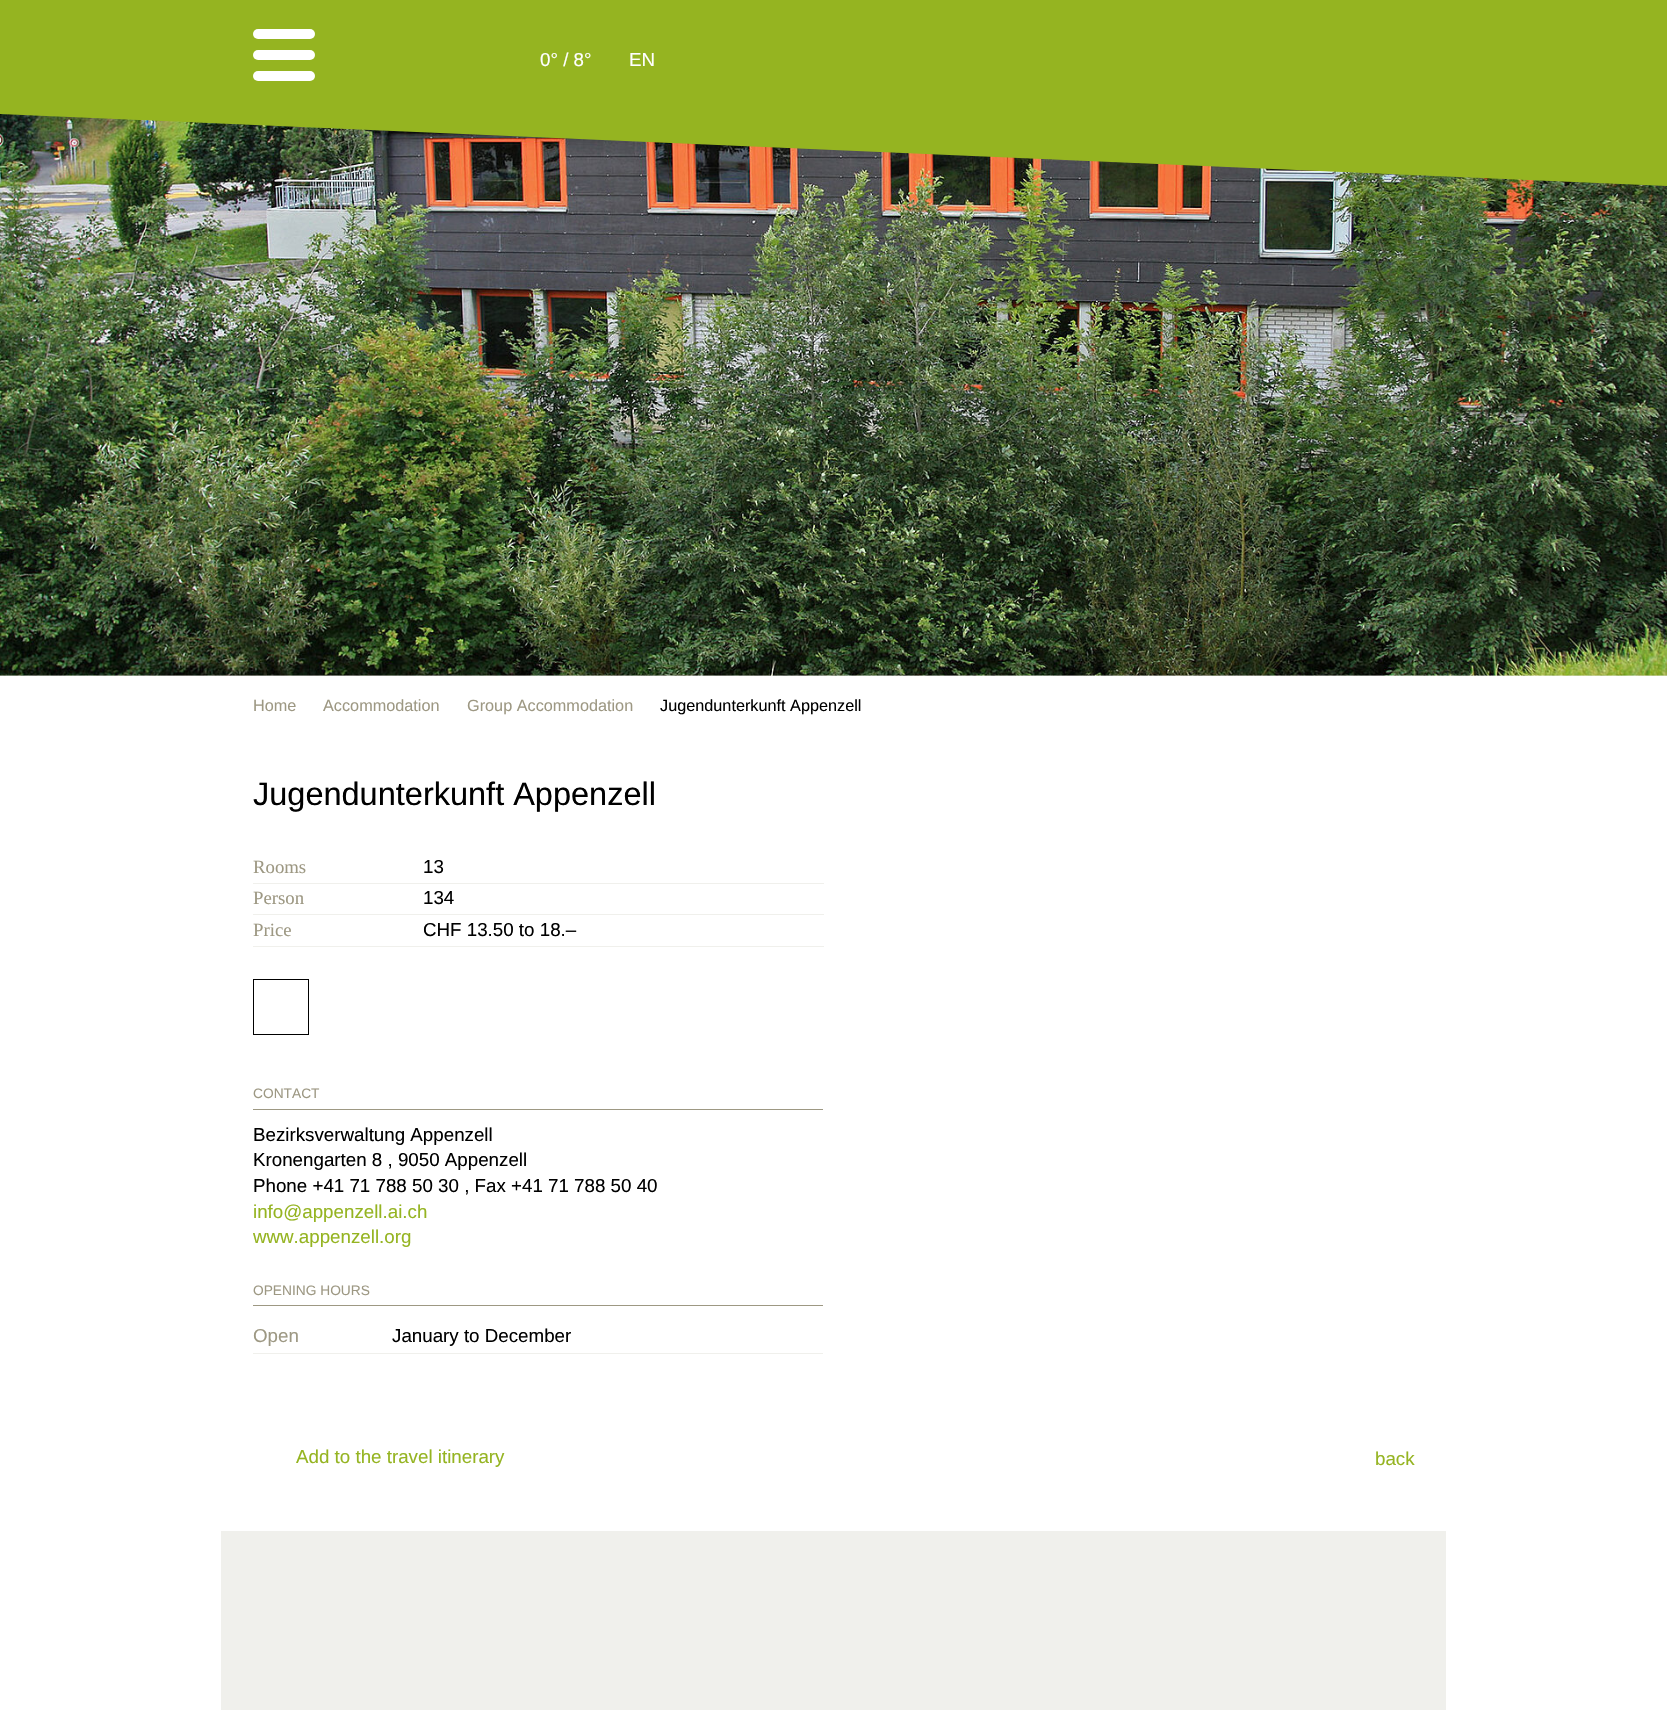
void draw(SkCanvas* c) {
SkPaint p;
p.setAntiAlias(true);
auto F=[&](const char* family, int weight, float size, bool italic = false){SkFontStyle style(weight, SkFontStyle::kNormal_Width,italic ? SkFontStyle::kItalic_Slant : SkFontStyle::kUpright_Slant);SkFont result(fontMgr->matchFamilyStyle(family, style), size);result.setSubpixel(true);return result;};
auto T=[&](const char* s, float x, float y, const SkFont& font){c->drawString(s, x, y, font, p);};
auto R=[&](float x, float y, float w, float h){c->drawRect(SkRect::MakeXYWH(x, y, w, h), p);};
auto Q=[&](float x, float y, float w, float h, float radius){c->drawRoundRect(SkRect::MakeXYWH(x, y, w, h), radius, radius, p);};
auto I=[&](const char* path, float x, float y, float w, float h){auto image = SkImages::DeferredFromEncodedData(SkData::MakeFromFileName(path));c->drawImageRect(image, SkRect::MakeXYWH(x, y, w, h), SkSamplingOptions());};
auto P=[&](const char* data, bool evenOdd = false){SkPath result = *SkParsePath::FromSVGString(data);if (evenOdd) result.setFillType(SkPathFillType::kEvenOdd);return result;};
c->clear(0xffffffff);
p.setColor(0xffe7e5e0);
R(0,675,1667,1);
I("1.png",0,114,1667,562);
p.setColor(0xff95b421);
c->drawPath(P("M0-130l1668 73v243l-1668-72z"),p);
p.setColor(0xffffffff);
Q(253,29,62,10,5);
Q(253,50,62,10,5);
Q(253,71,62,10,5);
auto f1 = F("Liberation Sans",400,18.75);
T("0° / 8°",540,66,f1);
T("EN",629,66,f1);
auto f2 = F("Liberation Sans",400,16.25);
p.setColor(0xff9d9883);
T("Home",253,711,f2);
T("Accommodation",323,711,f2);
T("Group Accommodation",467,711,f2);
p.setColor(0xff000000);
T("Jugendunterkunft Appenzell",660,711,f2);
auto f3 = F("Liberation Sans",400,32.5);
T("Jugendunterkunft Appenzell",253,805,f3);
auto f4 = F("Liberation Serif",400,18.75);
p.setColor(0xff9d9883);
T("Rooms",253,873,f4);
p.setColor(0xfff0f0ec);
R(253,883,571,1);
p.setColor(0xff000000);
T("13",423,873,f1);
p.setColor(0xff9d9883);
T("Person",253,904,f4);
p.setColor(0xfff0f0ec);
R(253,914,571,1);
p.setColor(0xff000000);
T("134",423,904,f1);
p.setColor(0xff9d9883);
T("Price",253,936,f4);
p.setColor(0xfff0f0ec);
R(253,946,571,1);
p.setColor(0xff000000);
T("CHF 13.50 to 18.–",423,936,f1);
p.setStroke(true);
p.setStrokeWidth(1);
c->drawRect(SkRect::MakeXYWH(253.5,979.5,55,55),p);
p.setStroke(false);
p.setColor(0xff9d9883);
R(253,1109,570,1);
auto f5 = F("Liberation Sans",400,13.75);
T("CONTACT",253,1098,f5);
p.setColor(0xff000000);
T("Bezirksverwaltung Appenzell",253,1141,f1);
T("Kronengarten 8 , 9050 Appenzell",253,1166,f1);
T("Phone +41 71 788 50 30 , Fax +41 71 788 50 40",253,1192,f1);
p.setColor(0xff95b421);
T("info@appenzell.ai.ch",253,1218,f1);
T("www.appenzell.org",253,1243,f1);
p.setColor(0xff9d9883);
R(253,1305,570,1);
T("OPENING HOURS",253,1295,f5);
T("Open",253,1342,f1);
p.setColor(0xfff0f0ec);
R(253,1353,570,1);
p.setColor(0xff000000);
T("January to December",392,1342,f1);
p.setColor(0xff95b421);
T("Add to the travel itinerary",296,1463,f1);
T("back",1375,1465,f1);
p.setColor(0xfff0f0ec);
R(221,1531,1225,179);
}
